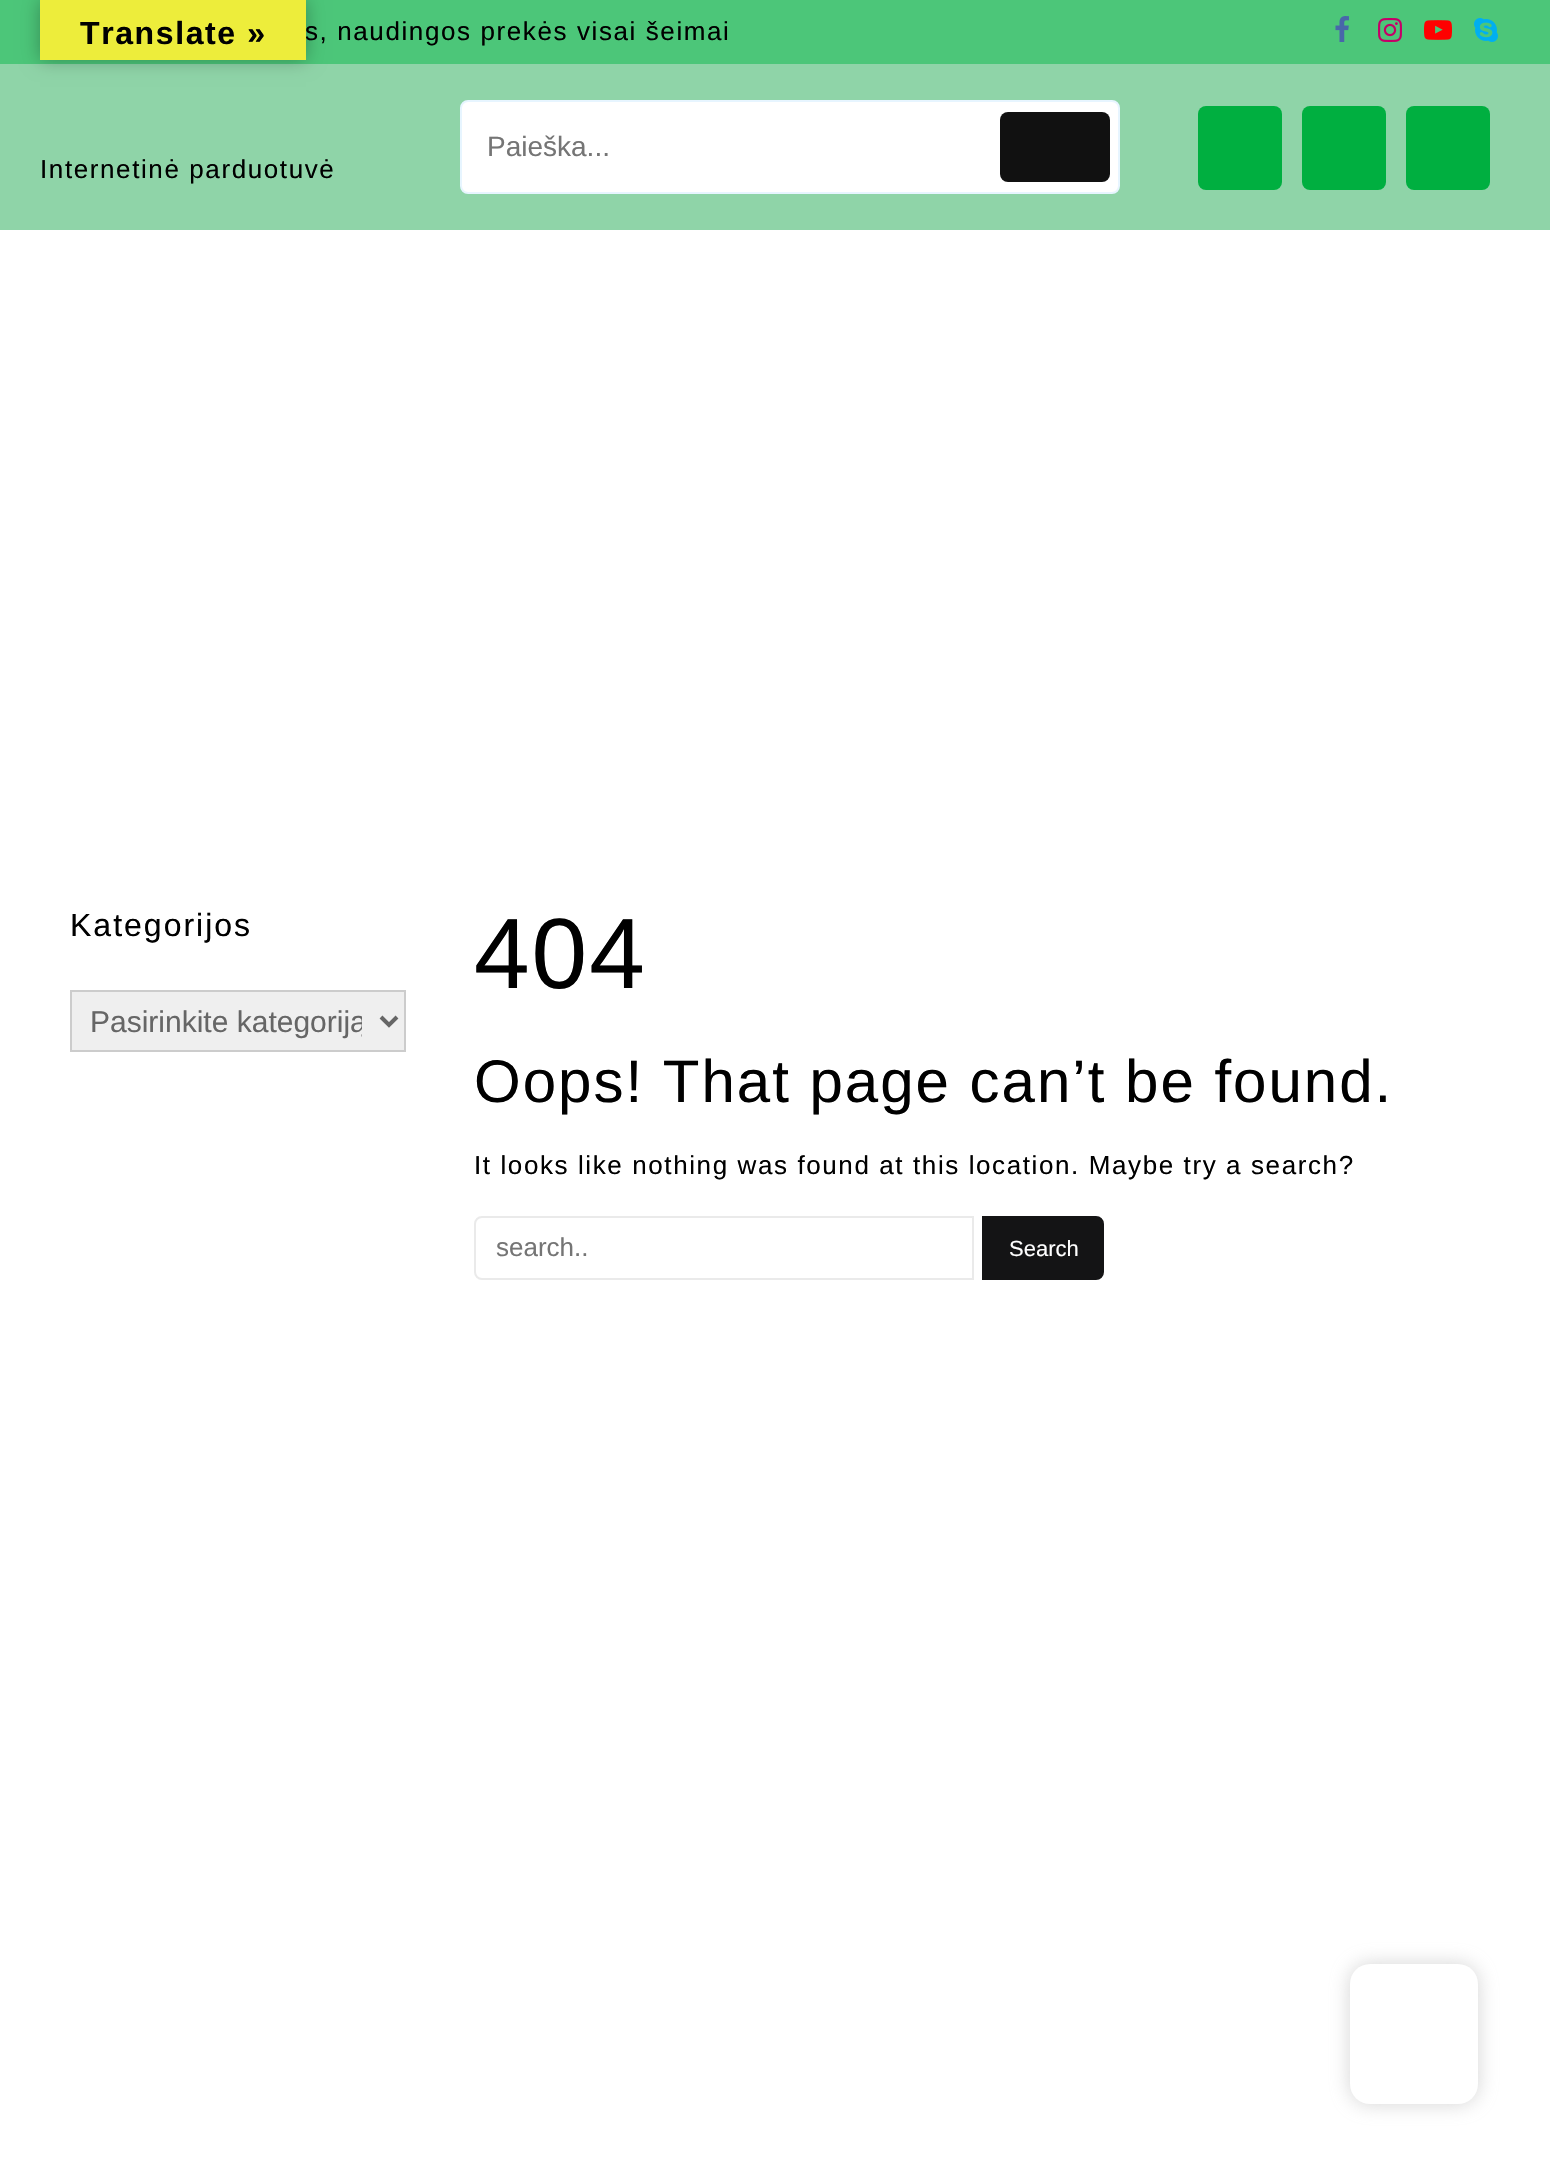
void draw(SkCanvas* c) {
SkPaint p;
p.setAntiAlias(true);
auto F=[&](const char* family, int weight, float size, bool italic = false){SkFontStyle style(weight, SkFontStyle::kNormal_Width,italic ? SkFontStyle::kItalic_Slant : SkFontStyle::kUpright_Slant);SkFont result(fontMgr->matchFamilyStyle(family, style), size);result.setSubpixel(true);return result;};
auto T=[&](const char* s, float x, float y, const SkFont& font){c->drawString(s, x, y, font, p);};
auto L=[&](const char* s, float x, float y, const SkFont& font, const SkPaint& ink, float letter, float word){std::vector<SkGlyphID> glyphs(font.countText(s, strlen(s), SkTextEncoding::kUTF8));std::vector<float> xs(glyphs.size());font.textToGlyphs(s, strlen(s), SkTextEncoding::kUTF8, glyphs);font.getXPos(glyphs, xs, x);float extra = 0;for (size_t i = 0; i < glyphs.size(); i++) {xs[i] += extra;extra += letter + word * (glyphs[i] == font.unicharToGlyph(' '));}c->drawTextBlob(SkTextBlob::MakeFromPosHGlyphs(glyphs, xs, y, font), 0, 0, ink);};
auto R=[&](float x, float y, float w, float h){c->drawRect(SkRect::MakeXYWH(x, y, w, h), p);};
auto Q=[&](float x, float y, float w, float h, float radius){c->drawRoundRect(SkRect::MakeXYWH(x, y, w, h), radius, radius, p);};
auto I=[&](const char* path, float x, float y, float w, float h){auto image = SkImages::DeferredFromEncodedData(SkData::MakeFromFileName(path));c->drawImageRect(image, SkRect::MakeXYWH(x, y, w, h), SkSamplingOptions());};
auto P=[&](const char* data, bool evenOdd = false){SkPath result = *SkParsePath::FromSVGString(data);if (evenOdd) result.setFillType(SkPathFillType::kEvenOdd);return result;};
c->clear(0xffffffff);
p.setColor(0xff4cc679);
R(0,0,1550,64);
p.setColor(0xff8fd4a8);
R(0,64,1550,166);
p.setColor(0x4d000000);
p.setMaskFilter(SkMaskFilter::MakeBlur(kNormal_SkBlurStyle, 9));
c->drawRect(SkRect::MakeXYWH(40,0,266,60),p);
p.setMaskFilter(nullptr);
auto f1 = F("Liberation Sans",400,26);
p.setColor(0xff000000);
L("s, naudingos prekės visai šeimai",305,40,f1,p,1.6,0);
p.setColor(0xffeded3b);
R(40,0,266,60);
auto f2 = F("Liberation Sans",700,32);
p.setColor(0xff000000);
L("Translate »",80,44,f2,p,1.6,0);
I("1.png",1335,16,14,26);
I("2.png",1378,18,24,24);
I("3.png",1424,20,28,20);
I("4.png",1474,18,24,24);
p.setColor(0xffffffff);
c->drawRoundRect(SkRect::MakeXYWH(461,101,658,92),7,7,p);
p.setStroke(true);
p.setStrokeWidth(2);
p.setColor(0xffe7f5ff);
c->drawRoundRect(SkRect::MakeXYWH(461,101,658,92),7,7,p);
auto f3 = F("Liberation Sans",400,28);
p.setStroke(false);
p.setColor(0xff757575);
T("Paieška...",487,156,f3);
p.setColor(0xff111111);
Q(1000,112,110,70,8);
p.setColor(0xff00af40);
Q(1198,106,84,84,8);
Q(1302,106,84,84,8);
Q(1406,106,84,84,8);
p.setColor(0xff000000);
L("Internetinė parduotuvė",40,178,f1,p,1.6,0);
auto f4 = F("Liberation Sans",400,32);
L("Kategorijos",70,936,f4,p,2,0);
p.setColor(0xffefefef);
c->drawRect(SkRect::MakeXYWH(71,991,334,60),p);
p.setStroke(true);
p.setColor(0xffcccccc);
c->drawRect(SkRect::MakeXYWH(71,991,334,60),p);
p.setStrokeWidth(4);
p.setColor(0xff666666);
c->drawPath(P("M381 1017l8 8l8-8"),p);
c->save();
c->clipRect(SkRect::MakeXYWH(90,1002,272,38));
auto f5 = F("Liberation Sans",400,30);
p.setStroke(false);
T("Pasirinkite kategoriją",90,1032,f5);
c->restore();
auto f6 = F("Liberation Sans",400,100);
p.setColor(0xff000000);
L("404",474,988,f6,p,2,0);
auto f7 = F("Liberation Sans",400,60);
L("Oops! That page can’t be found.",474,1102,f7,p,2,0);
L("It looks like nothing was found at this location. Maybe try a search?",474,1174,f1,p,1.6,0);
p.setStroke(true);
p.setStrokeWidth(2);
p.setColor(0xffeaeaea);
c->drawPath(P("M482 1217h491v62h-491c-4 0-7-3-7-7v-48c0-4 3-7 7-7z"),p);
p.setStroke(false);
p.setColor(0xff757575);
T("search..",496,1256,f1);
p.setColor(0xff141415);
c->drawPath(P("M983 1217h113c4 0 7 3 7 7v48c0 4-3 7-7 7h-113z"),p);
p.setStroke(true);
c->drawPath(P("M983 1217h113c4 0 7 3 7 7v48c0 4-3 7-7 7h-113z"),p);
auto f8 = F("Liberation Sans",400,22);
p.setStroke(false);
p.setColor(0xffffffff);
T("Search",1009,1256,f8);
p.setColor(0x99b7b7b7);
p.setMaskFilter(SkMaskFilter::MakeBlur(kNormal_SkBlurStyle, 10));
c->drawRoundRect(SkRect::MakeXYWH(1350,1964,128,140),20,20,p);
p.setMaskFilter(nullptr);
p.setColor(0xffffffff);
Q(1350,1964,128,140,20);
}
